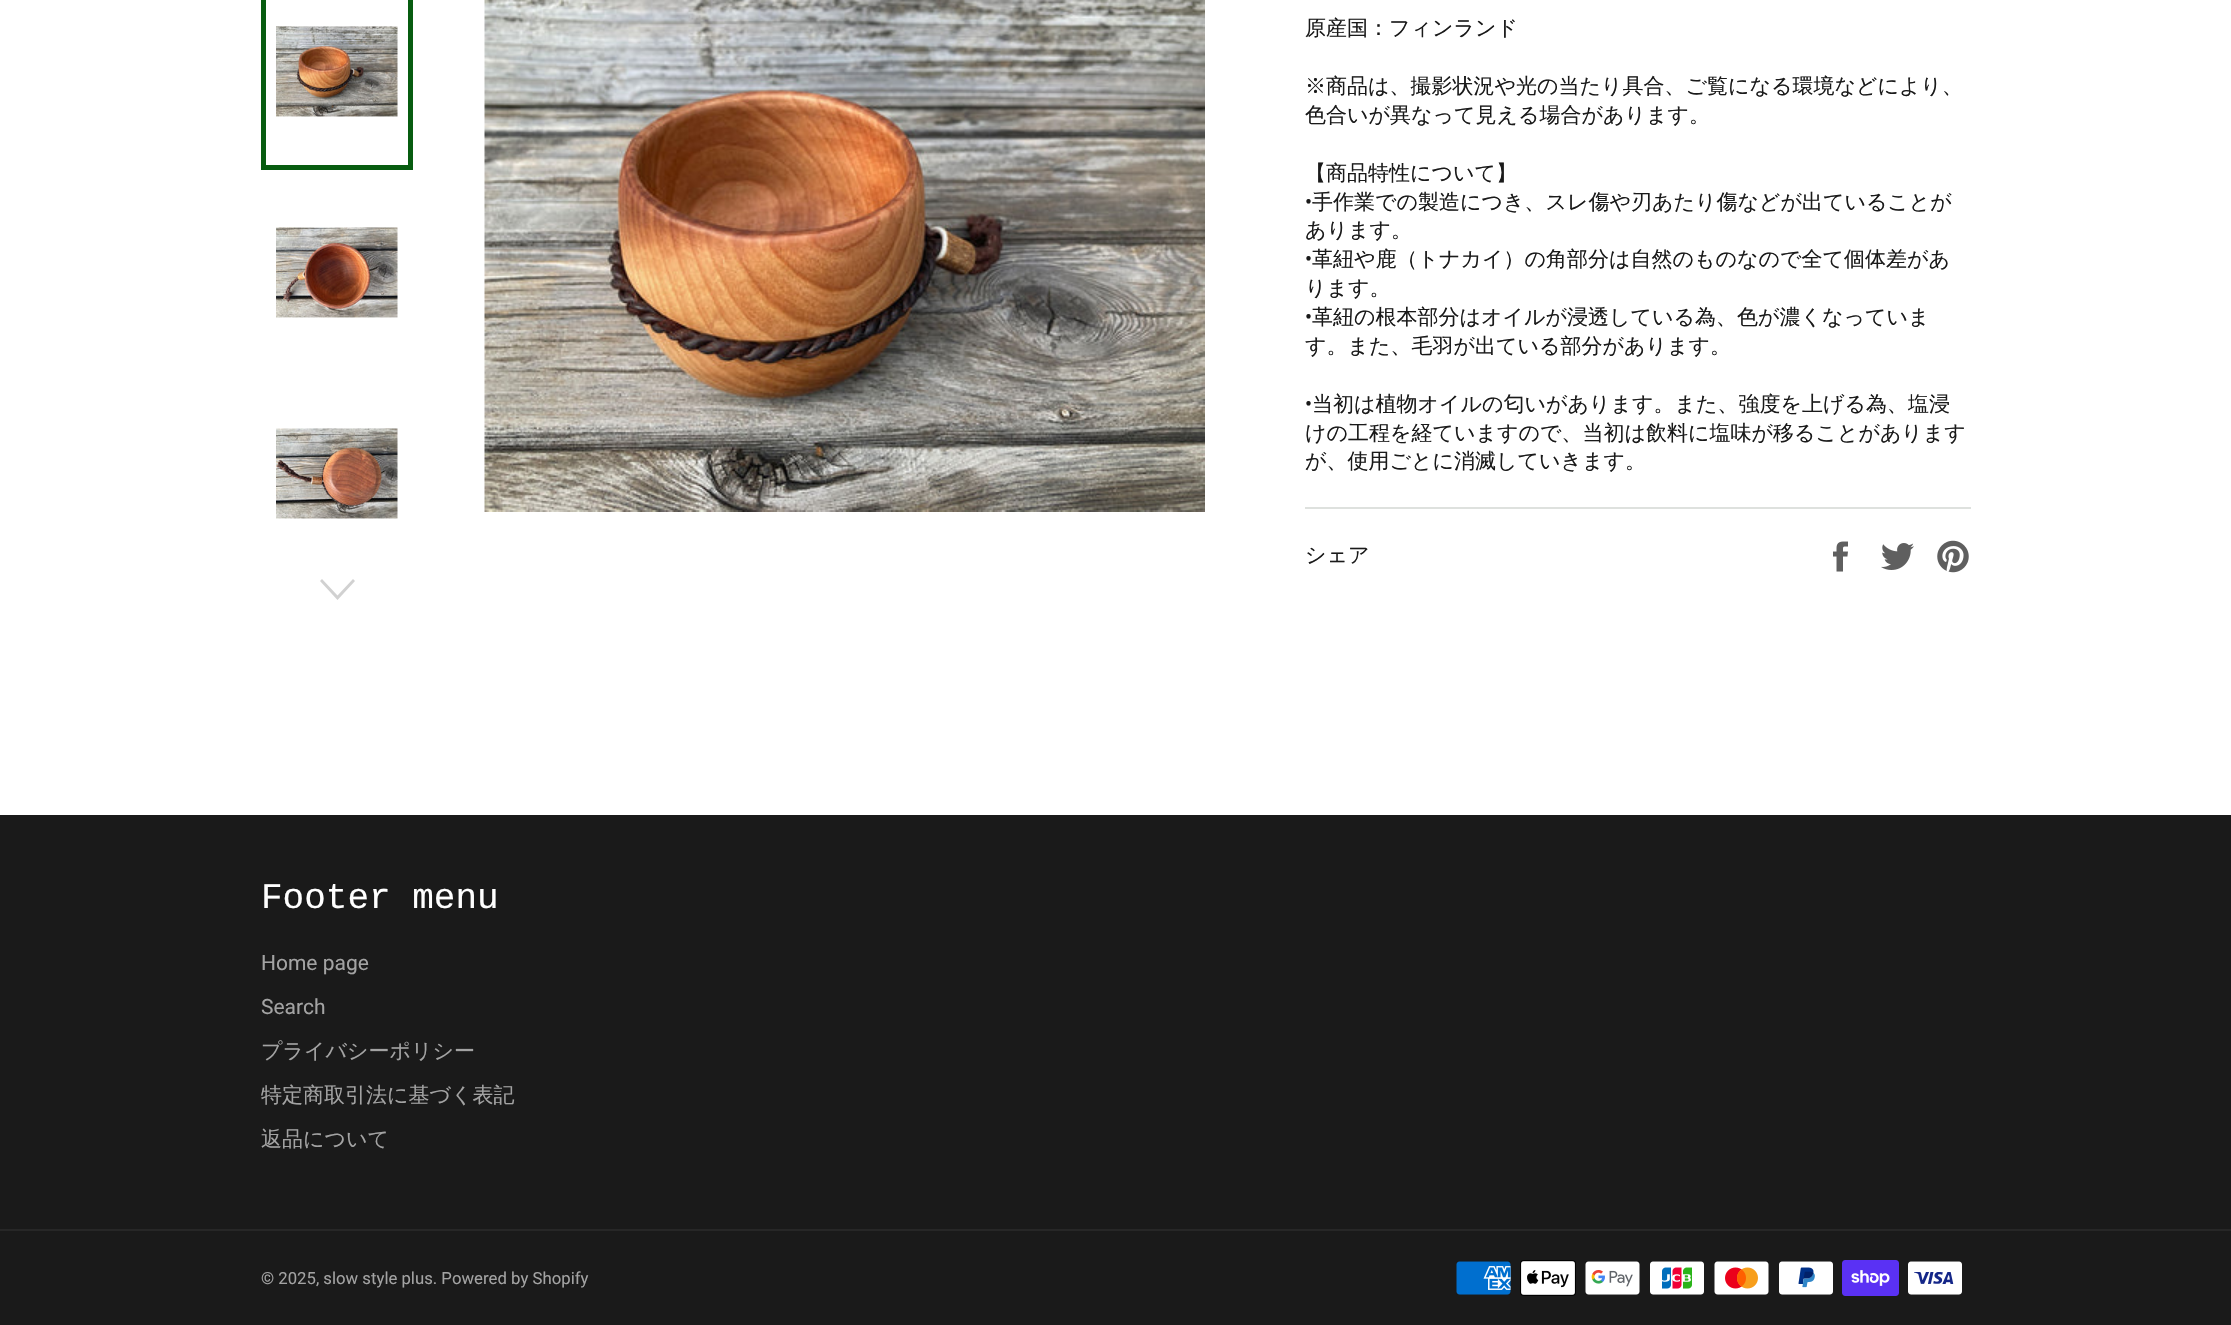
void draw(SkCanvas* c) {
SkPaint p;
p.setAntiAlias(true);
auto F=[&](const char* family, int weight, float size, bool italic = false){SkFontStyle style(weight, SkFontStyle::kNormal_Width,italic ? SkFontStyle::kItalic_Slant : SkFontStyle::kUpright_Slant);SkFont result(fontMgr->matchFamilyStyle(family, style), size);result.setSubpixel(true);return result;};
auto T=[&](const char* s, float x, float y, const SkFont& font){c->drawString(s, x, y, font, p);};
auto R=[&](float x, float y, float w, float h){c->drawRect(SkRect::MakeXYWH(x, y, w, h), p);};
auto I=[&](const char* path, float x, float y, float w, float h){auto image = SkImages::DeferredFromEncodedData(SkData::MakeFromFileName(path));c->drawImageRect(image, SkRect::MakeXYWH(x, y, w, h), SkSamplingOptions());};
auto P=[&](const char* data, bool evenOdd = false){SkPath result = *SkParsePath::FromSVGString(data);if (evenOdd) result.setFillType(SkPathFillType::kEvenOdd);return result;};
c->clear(0xffffffff);
I("1.png",276,26,122,91);
p.setStroke(true);
p.setStrokeWidth(5);
p.setColor(0xff075c10);
c->drawRect(SkRect::MakeXYWH(263.5,-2.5,147,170),p);
I("2.png",276,227,122,91);
I("3.png",276,428,122,91);
p.setStroke(false);
p.setColor(0xffd1d1d1);
c->drawPath(P("M353 579l2 2l-17.5 19l-17.5-19l2-2l15.5 16.5z"),p);
I("4.png",484,0,721,512);
auto f1 = F("WenQuanYi Zen Hei",500,21);
p.setColor(0xff1a1a1a);
T("原産国：フィンランド",1305,35,f1);
T("※商品は、撮影状況や光の当たり具合、ご覧になる環境などにより、",1305,93,f1);
T("色合いが異なって見える場合があります。",1305,122,f1);
T("【商品特性について】",1305,180,f1);
auto f2 = F("Roboto",400,21);
T("•",1305,209,f2);
T("手作業での製造につき、スレ傷や刃あたり傷などが出ていることが",1312,209,f1);
T("あります。",1305,237,f1);
T("•",1305,266,f2);
T("革紐や鹿（トナカイ）の角部分は自然のものなので全て個体差があ",1312,266,f1);
T("ります。",1305,295,f1);
T("•",1305,324,f2);
T("革紐の根本部分はオイルが浸透している為、色が濃くなっていま",1312,324,f1);
T("す。また、毛羽が出ている部分があります。",1305,353,f1);
T("•",1305,411,f2);
T("当初は植物オイルの匂いがあります。また、強度を上げる為、塩浸",1312,411,f1);
T("けの工程を経ていますので、当初は飲料に塩味が移ることがあります",1305,440,f1);
T("が、使用ごとに消滅していきます。",1305,468,f1);
p.setColor(0xffdee1de);
R(1305,507,666,2);
p.setColor(0xff1a1a1a);
T("シェア",1305,562,f1);
I("5.png",1833,541,15,31);
I("6.png",1881,543,33,27);
I("7.png",1937,540,32,33);
R(0,815,2231,510);
auto f3 = F("Liberation Mono",400,36);
p.setColor(0xffffffff);
T("Footer menu",261,908,f3);
p.setColor(0xffa3a3a3);
T("Home page",261,970,f2);
T("Search",261,1014,f2);
T("プライバシーポリシー",261,1058,f1);
T("特定商取引法に基づく表記",261,1102,f1);
T("返品について",261,1146,f1);
p.setColor(0xff272727);
R(0,1229,2231,2);
auto f4 = F("Roboto",400,16.75);
p.setColor(0xffa3a3a3);
T("© 2025, slow style plus. Powered by Shopify",261,1284,f4);
I("8.png",1456,1261,55,34);
I("9.png",1520,1260,56,36);
I("10.png",1585,1261,55,34);
I("11.png",1650,1261,54,34);
I("12.png",1714,1261,55,34);
I("13.png",1779,1261,54,34);
I("14.png",1842,1260,57,36);
I("15.png",1908,1261,54,34);
}
